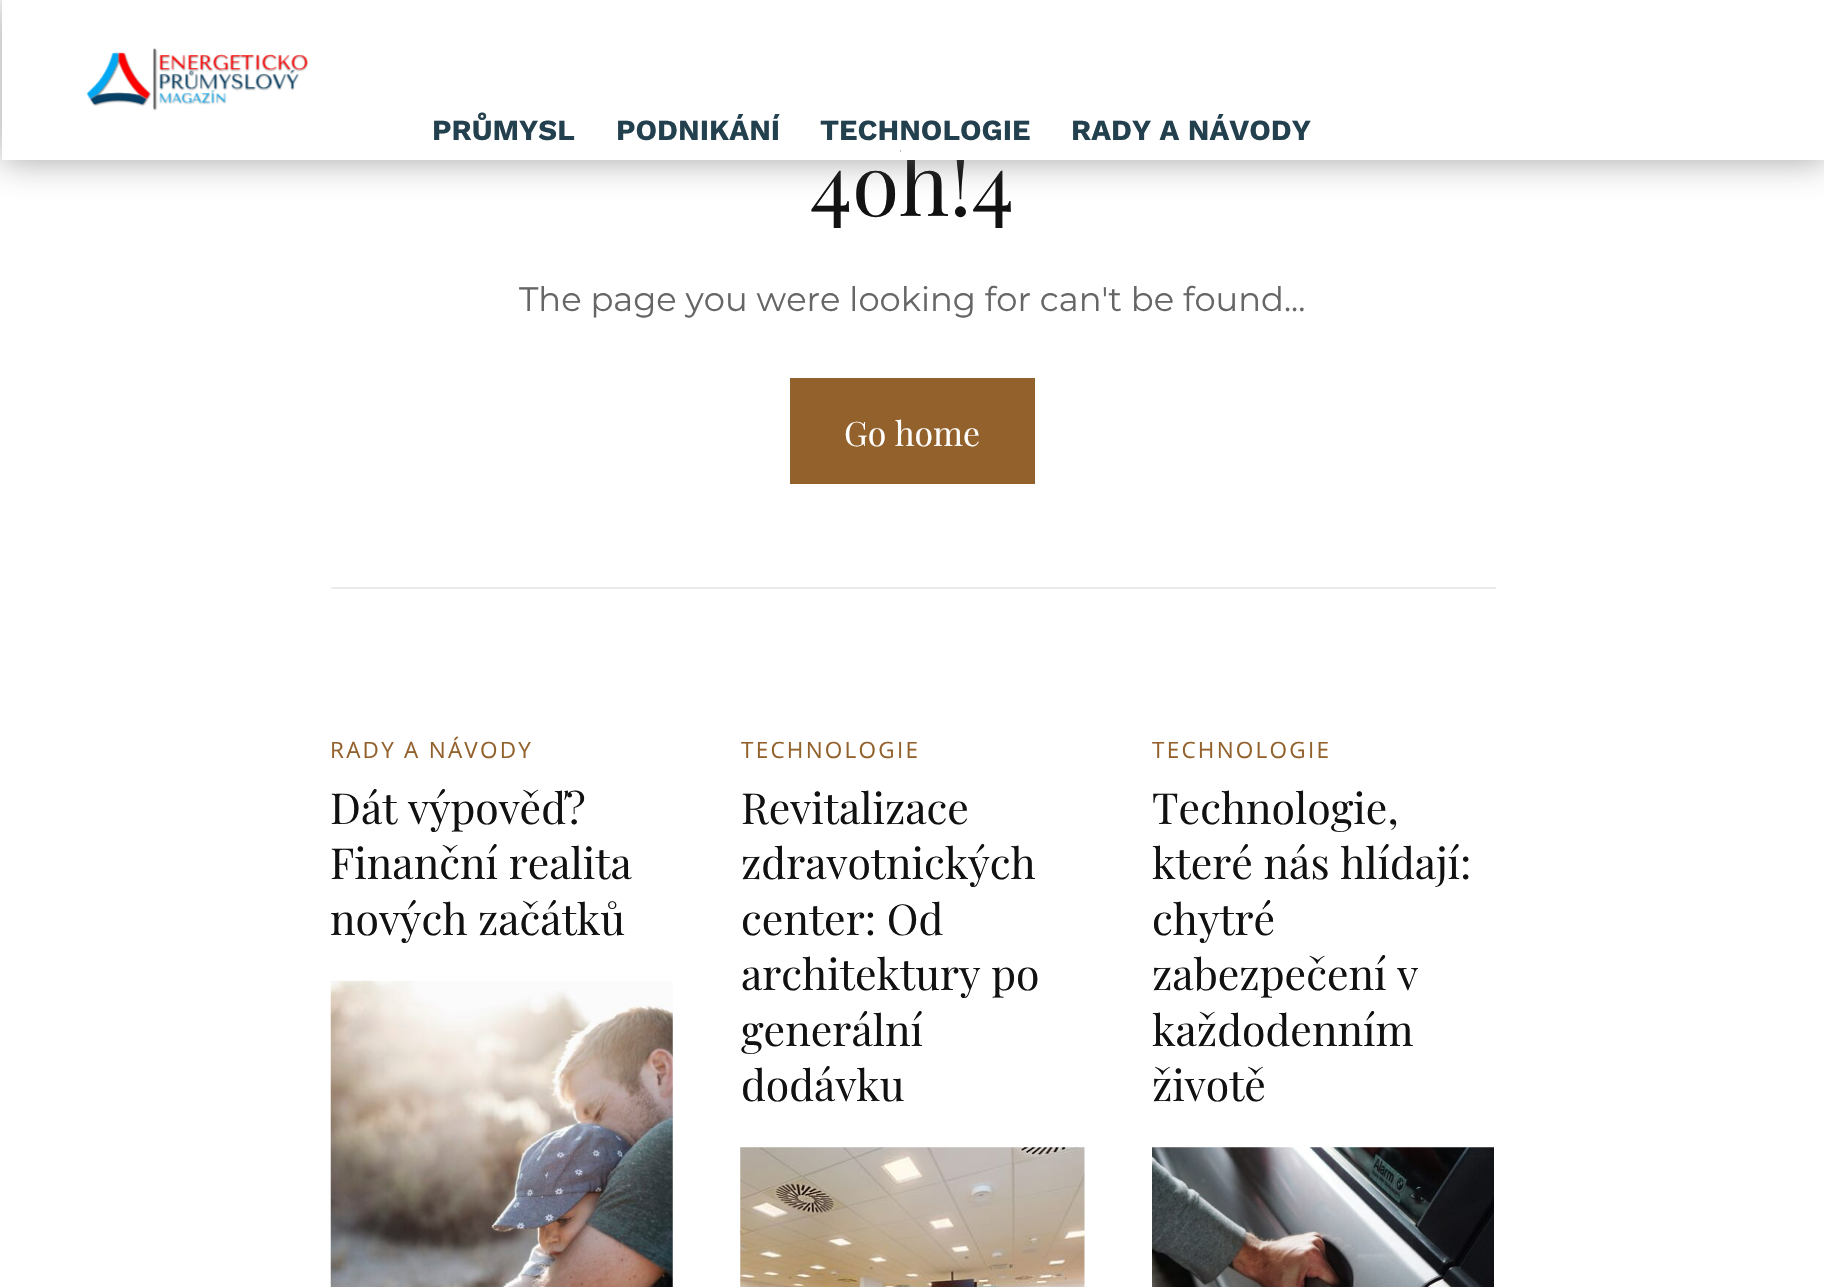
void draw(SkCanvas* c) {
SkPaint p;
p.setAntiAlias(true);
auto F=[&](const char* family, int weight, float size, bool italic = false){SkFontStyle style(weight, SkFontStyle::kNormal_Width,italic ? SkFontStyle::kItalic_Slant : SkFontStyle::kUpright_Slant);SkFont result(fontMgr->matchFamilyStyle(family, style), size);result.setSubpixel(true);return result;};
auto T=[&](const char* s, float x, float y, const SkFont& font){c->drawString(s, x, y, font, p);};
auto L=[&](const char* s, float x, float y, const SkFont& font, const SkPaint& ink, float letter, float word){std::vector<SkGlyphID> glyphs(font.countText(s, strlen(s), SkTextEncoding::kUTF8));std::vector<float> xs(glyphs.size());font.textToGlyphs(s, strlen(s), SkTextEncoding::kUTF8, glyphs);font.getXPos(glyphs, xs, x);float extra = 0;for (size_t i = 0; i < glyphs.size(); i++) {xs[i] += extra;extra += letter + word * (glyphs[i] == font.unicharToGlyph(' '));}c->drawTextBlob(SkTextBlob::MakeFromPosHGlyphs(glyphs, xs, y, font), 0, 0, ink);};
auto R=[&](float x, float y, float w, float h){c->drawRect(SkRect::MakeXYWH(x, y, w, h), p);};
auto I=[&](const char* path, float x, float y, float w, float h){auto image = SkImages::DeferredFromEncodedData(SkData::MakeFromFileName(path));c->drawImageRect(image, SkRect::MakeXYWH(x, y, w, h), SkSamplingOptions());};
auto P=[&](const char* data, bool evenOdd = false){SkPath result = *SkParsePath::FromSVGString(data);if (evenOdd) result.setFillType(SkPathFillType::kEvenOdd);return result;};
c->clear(0xffffffff);
I("1.png",86,48,222,63);
auto f1 = F("Playfair Display",400,85.5);
p.setColor(0xff111111);
T("4oh!4",810,216,f1);
p.setColor(0xffffffff);
R(901,149,64,11);
c->save();
c->clipPath(P("M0 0h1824v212h-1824zm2 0h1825v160h-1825z",true),true);
p.setColor(0x9e686868);
p.setMaskFilter(SkMaskFilter::MakeBlur(kNormal_SkBlurStyle, 17));
c->drawRect(SkRect::MakeXYWH(2,0,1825,160),p);
p.setMaskFilter(nullptr);
c->restore();
auto f2 = F("Work Sans",700,29.25);
p.setColor(0xff23404f);
T("PRŮMYSL",432,140,f2);
T("PODNIKÁNÍ",616,140,f2);
T("TECHNOLOGIE",820,140,f2);
T("RADY A NÁVODY",1071,140,f2);
auto f3 = F("Montserrat",400,33.75);
p.setColor(0xff666666);
T("The page you were looking for can't be found...",519,311,f3);
p.setColor(0xff93612c);
R(790,378,245,106);
auto f4 = F("Playfair Display",400,33.75);
p.setColor(0xffffffff);
T("Go home",844,446,f4);
p.setColor(0xffebebeb);
R(331,587,1165,2);
auto f5 = F("Open Sans",400,22.5);
p.setColor(0xff93612c);
L("RADY A NÁVODY",330,758,f5,p,2.25,0);
auto f6 = F("Playfair Display",400,42.75);
p.setColor(0xff111111);
T("Dát výpověď?",330,824,f6);
T("Finanční realita",330,879,f6);
T("nových začátků",330,935,f6);
I("2.png",330,980,343,307);
p.setColor(0xff93612c);
L("TECHNOLOGIE",741,758,f5,p,2.25,0);
p.setColor(0xff111111);
T("Revitalizace",741,824,f6);
T("zdravotnických",741,879,f6);
T("center: Od",741,935,f6);
T("architektury po",741,990,f6);
T("generální",741,1046,f6);
T("dodávku",741,1101,f6);
I("3.png",740,1147,345,140);
p.setColor(0xff93612c);
L("TECHNOLOGIE",1152,758,f5,p,2.25,0);
p.setColor(0xff111111);
T("Technologie,",1152,824,f6);
T("které nás hlídají:",1152,879,f6);
T("chytré",1152,935,f6);
T("zabezpečení v",1152,990,f6);
T("každodenním",1152,1046,f6);
T("životě",1152,1101,f6);
I("4.png",1152,1147,342,140);
}
